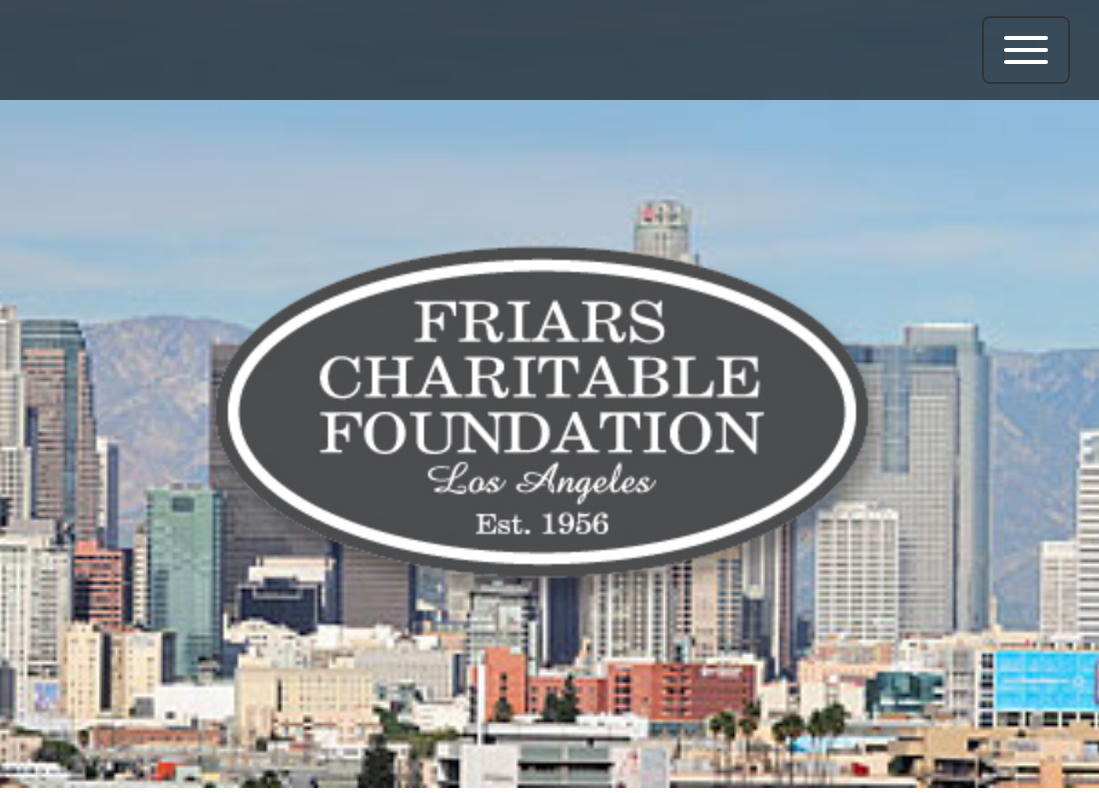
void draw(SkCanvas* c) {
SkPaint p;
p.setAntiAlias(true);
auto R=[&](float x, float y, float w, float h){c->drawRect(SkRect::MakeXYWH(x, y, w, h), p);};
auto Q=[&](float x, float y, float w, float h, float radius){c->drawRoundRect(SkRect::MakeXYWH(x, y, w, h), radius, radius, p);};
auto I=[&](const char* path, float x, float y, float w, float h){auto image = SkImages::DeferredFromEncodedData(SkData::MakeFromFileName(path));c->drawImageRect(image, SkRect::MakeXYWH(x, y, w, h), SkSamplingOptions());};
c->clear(0xffffffff);
I("1.png",0,0,1099,788);
I("2.png",214,245,676,359);
p.setColor(0x99000000);
R(0,0,1099,100);
p.setStroke(true);
p.setStrokeWidth(2);
p.setColor(0xff333333);
c->drawRoundRect(SkRect::MakeXYWH(983,17,86,66),7,7,p);
p.setStroke(false);
p.setColor(0xffffffff);
Q(1004,36,44,4,2);
Q(1004,48,44,4,2);
Q(1004,60,44,4,2);
}
